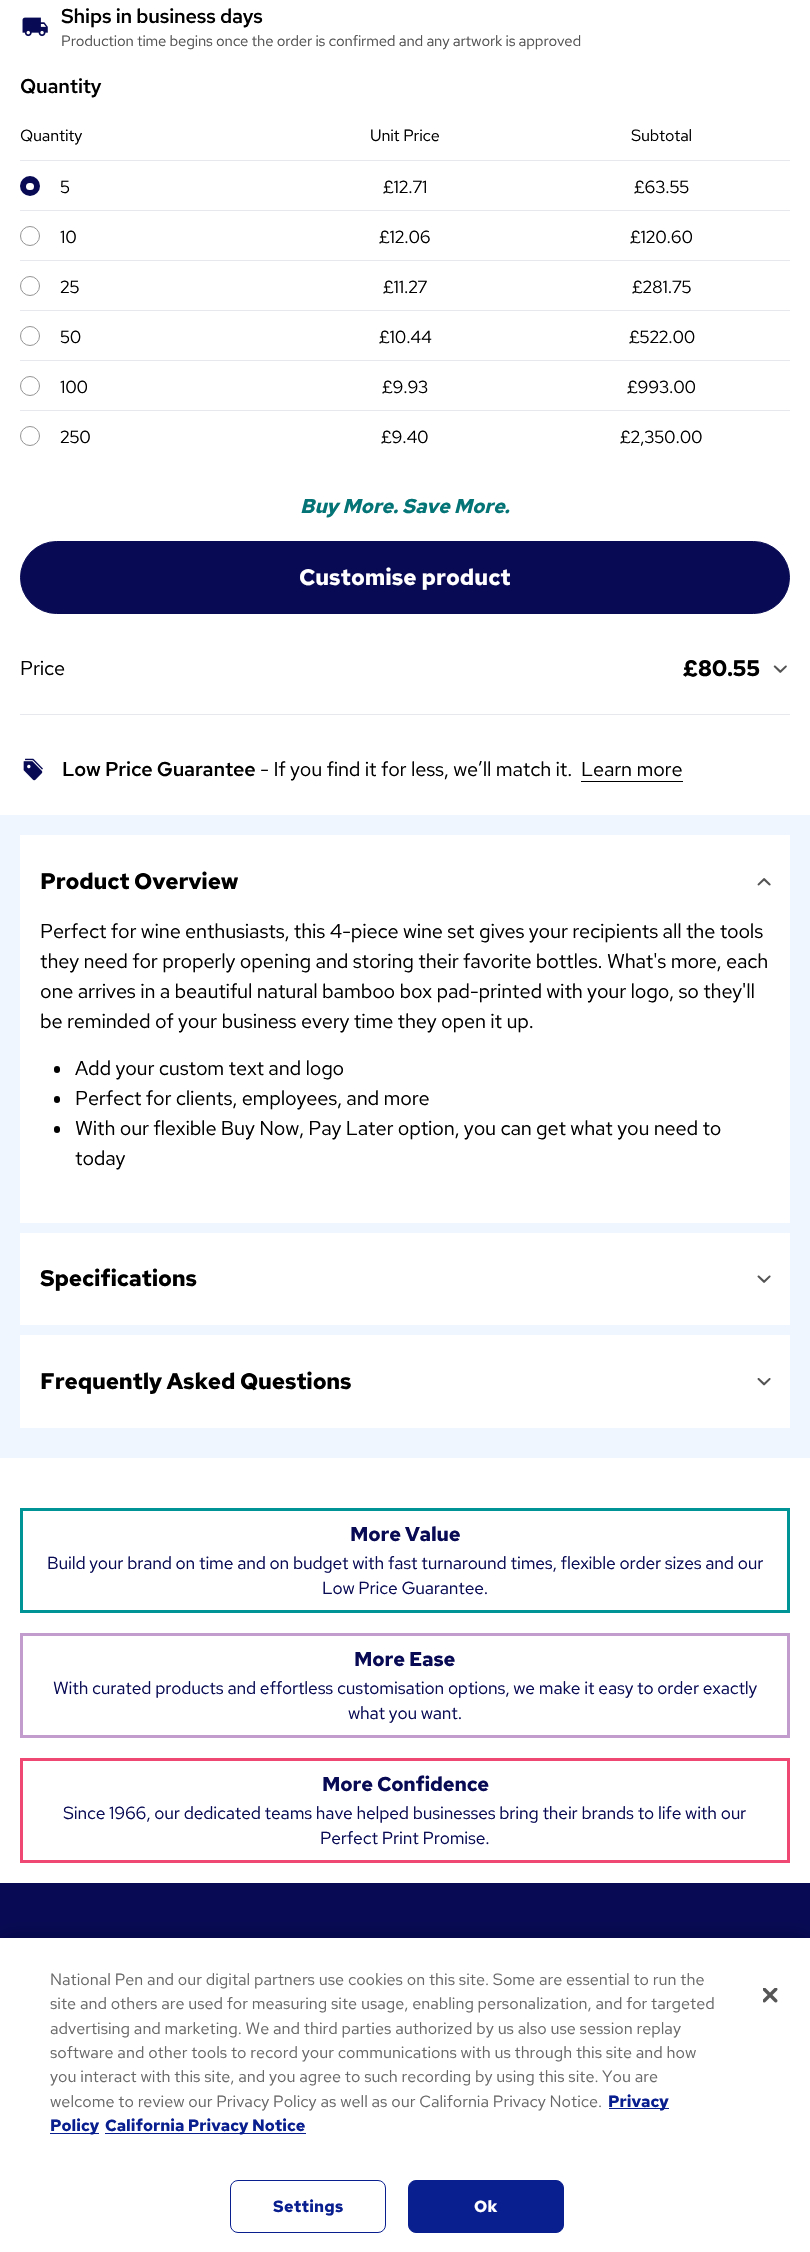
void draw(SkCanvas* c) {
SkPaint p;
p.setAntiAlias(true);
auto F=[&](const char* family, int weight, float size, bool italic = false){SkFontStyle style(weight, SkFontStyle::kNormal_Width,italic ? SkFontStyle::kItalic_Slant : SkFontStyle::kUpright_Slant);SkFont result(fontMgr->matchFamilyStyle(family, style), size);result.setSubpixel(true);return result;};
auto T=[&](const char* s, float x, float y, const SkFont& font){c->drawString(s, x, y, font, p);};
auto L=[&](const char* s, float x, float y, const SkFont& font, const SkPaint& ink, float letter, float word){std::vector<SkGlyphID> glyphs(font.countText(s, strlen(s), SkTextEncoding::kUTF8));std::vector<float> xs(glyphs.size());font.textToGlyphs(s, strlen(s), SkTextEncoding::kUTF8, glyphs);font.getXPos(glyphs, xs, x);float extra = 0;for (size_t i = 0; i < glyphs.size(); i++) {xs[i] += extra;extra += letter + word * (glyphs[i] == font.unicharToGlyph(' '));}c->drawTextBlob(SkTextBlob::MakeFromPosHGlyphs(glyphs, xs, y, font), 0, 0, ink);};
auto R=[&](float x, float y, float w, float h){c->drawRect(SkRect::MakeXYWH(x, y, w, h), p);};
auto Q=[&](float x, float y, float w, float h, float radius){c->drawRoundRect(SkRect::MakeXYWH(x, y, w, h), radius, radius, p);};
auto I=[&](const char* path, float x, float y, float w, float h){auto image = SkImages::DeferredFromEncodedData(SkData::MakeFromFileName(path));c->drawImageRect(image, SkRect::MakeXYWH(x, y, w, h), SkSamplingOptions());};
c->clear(0xffffffff);
I("1.png",22,17,26,20);
auto f1 = F("Red Hat Text",500,20);
p.setColor(0xff000000);
L("Ships in business days",61,23,f1,p,-.18,0);
auto f2 = F("Red Hat Text",400,15);
p.setColor(0xff535353);
L("Production time begins once the order is confirmed and any artwork is approved",61,46,f2,p,-.18,0);
p.setColor(0xff000000);
L("Quantity",20,93,f1,p,-.18,0);
p.setColor(0xffe6e8ee);
R(20,160,770,1);
auto f3 = F("Red Hat Text",400,16.25);
p.setColor(0xff000000);
L("Quantity",20,141,f3,p,-.18,0);
L("Unit Price",370,141,f3,p,-.18,0);
L("Subtotal",631,141,f3,p,-.18,0);
p.setColor(0xffe6e8ee);
R(20,210,770,1);
p.setColor(0xff080a54);
c->drawCircle(30,186,10,p);
auto f4 = F("Red Hat Text",400,17.5);
p.setColor(0xff000000);
L("5",60,193,f4,p,-.18,0);
p.setColor(0xffffffff);
Q(26,183,8,7,3.5);
p.setColor(0xff000000);
L("£12.71",383,193,f4,p,-.18,0);
L("£63.55",634,193,f4,p,-.18,0);
p.setColor(0xffe6e8ee);
R(20,260,770,1);
p.setStroke(true);
p.setStrokeWidth(1);
p.setColor(0xff949494);
c->drawCircle(30,236,9.5,p);
p.setStroke(false);
p.setColor(0xff000000);
L("10",60,243,f4,p,-.18,0);
L("£12.06",379,243,f4,p,-.18,0);
L("£120.60",630,243,f4,p,-.18,0);
p.setColor(0xffe6e8ee);
R(20,310,770,1);
p.setStroke(true);
p.setColor(0xff949494);
c->drawCircle(30,286,9.5,p);
p.setStroke(false);
p.setColor(0xff000000);
L("25",60,293,f4,p,-.18,0);
L("£11.27",383,293,f4,p,-.18,0);
L("£281.75",632,293,f4,p,-.18,0);
p.setColor(0xffe6e8ee);
R(20,360,770,1);
p.setStroke(true);
p.setColor(0xff949494);
c->drawCircle(30,336,9.5,p);
p.setStroke(false);
p.setColor(0xff000000);
L("50",60,343,f4,p,-.18,0);
L("£10.44",379,343,f4,p,-.18,0);
L("£522.00",629,343,f4,p,-.18,0);
p.setColor(0xffe6e8ee);
R(20,410,770,1);
p.setStroke(true);
p.setColor(0xff949494);
c->drawCircle(30,386,9.5,p);
p.setStroke(false);
p.setColor(0xff000000);
L("100",60,393,f4,p,-.18,0);
L("£9.93",382,393,f4,p,-.18,0);
L("£993.00",627,393,f4,p,-.18,0);
p.setStroke(true);
p.setColor(0xff949494);
c->drawCircle(30,436,9.5,p);
p.setStroke(false);
p.setColor(0xff000000);
L("250",60,443,f4,p,-.18,0);
L("£9.40",381,443,f4,p,-.18,0);
L("£2,350.00",620,443,f4,p,-.18,0);
auto f5 = F("Red Hat Text",700,20,true);
p.setColor(0xff057476);
L("Buy More. Save More.",300,513,f5,p,-.18,0);
p.setColor(0xff080a54);
c->drawRoundRect(SkRect::MakeXYWH(20.5,541.5,769,72),36,36,p);
p.setStroke(true);
c->drawRoundRect(SkRect::MakeXYWH(20.5,541.5,769,72),36,36,p);
auto f6 = F("Red Hat Text",700,22.5);
p.setStroke(false);
p.setColor(0xffffffff);
T("Customise product",299,585,f6);
p.setColor(0xffe6e8ee);
R(20,714,770,1);
auto f7 = F("Red Hat Text",400,20);
p.setColor(0xff000000);
L("Price",20,675,f7,p,-.18,0);
L("£80.55",683,676,f6,p,-.18,0);
I("2.png",773,665,14,8);
I("3.png",23,758,20,23);
L("Low Price Guarantee",62,776,f1,p,-.18,0);
L("- If you find it for less, we’ll match it.",260,776,f7,p,-.18,0);
L("Learn more",581,776,f7,p,-.18,0);
R(581,781,102,1);
p.setColor(0xfff0f6ff);
R(0,815,810,643);
p.setColor(0xffffffff);
R(20,835,770,388);
p.setColor(0xff000000);
L("Product Overview",40,889,f6,p,-.18,0);
I("4.png",757,878,14,8);
L("Perfect for wine enthusiasts, this 4-piece wine set gives your recipients all the tools",40,938,f7,p,-.18,0);
L("they need for properly opening and storing their favorite bottles. What's more, each",40,968,f7,p,-.18,0);
L("one arrives in a beautiful natural bamboo box pad-printed with your logo, so they'll",40,998,f7,p,-.18,0);
L("be reminded of your business every time they open it up.",40,1028,f7,p,-.18,0);
Q(54,1066,6,7,3);
L("Add your custom text and logo",75,1075,f7,p,-.18,0);
Q(54,1096,6,7,3);
L("Perfect for clients, employees, and more",75,1105,f7,p,-.18,0);
Q(54,1126,6,7,3);
L("With our flexible Buy Now, Pay Later option, you can get what you need to",75,1135,f7,p,-.18,0);
L("today",75,1165,f7,p,-.18,0);
p.setColor(0xffffffff);
R(20,1233,770,92);
p.setColor(0xff000000);
L("Specifications",40,1286,f6,p,-.18,0);
I("5.png",757,1275,14,8);
p.setColor(0xffffffff);
R(20,1335,770,93);
p.setColor(0xff000000);
L("Frequently Asked Questions",40,1389,f6,p,-.18,0);
I("6.png",757,1378,14,8);
p.setStroke(true);
p.setStrokeWidth(3);
p.setColor(0xff019497);
c->drawRect(SkRect::MakeXYWH(21.5,1509.5,767,102),p);
auto f8 = F("Red Hat Text",700,20);
p.setStroke(false);
p.setColor(0xff080a54);
L("More Value",350,1541,f8,p,-.18,0);
L("Build your brand on time and on budget with fast turnaround times, flexible order sizes and our",47,1569,f4,p,-.18,0);
L("Low Price Guarantee.",322,1594,f4,p,-.18,0);
p.setStroke(true);
p.setColor(0xffc29ccd);
c->drawRect(SkRect::MakeXYWH(21.5,1634.5,767,102),p);
p.setStroke(false);
p.setColor(0xff080a54);
L("More Ease",354,1666,f8,p,-.18,0);
L("With curated products and effortless customisation options, we make it easy to order exactly",53,1694,f4,p,-.18,0);
L("what you want.",348,1719,f4,p,-.18,0);
p.setStroke(true);
p.setColor(0xffef4873);
c->drawRect(SkRect::MakeXYWH(21.5,1759.5,767,102),p);
p.setStroke(false);
p.setColor(0xff080a54);
L("More Confidence",322,1791,f8,p,-.18,0);
L("Since 1966, our dedicated teams have helped businesses bring their brands to life with our",63,1819,f4,p,-.18,0);
L("Perfect Print Promise.",320,1844,f4,p,-.18,0);
R(0,1883,810,55);
p.setColor(0x33000000);
p.setMaskFilter(SkMaskFilter::MakeBlur(kNormal_SkBlurStyle, 11));
c->drawRect(SkRect::MakeXYWH(0,1938,810,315),p);
p.setMaskFilter(nullptr);
p.setColor(0xffffffff);
R(0,1938,810,314);
p.setColor(0xff696969);
T("National Pen and our digital partners use cookies on this site. Some are essential to run the",50,1985,f3);
T("site and others are used for measuring site usage, enabling personalization, and for targeted",50,2009,f3);
T("advertising and marketing. We and third parties authorized by us also use session replay",50,2034,f3);
T("software and other tools to record your communications with us through this site and how",50,2058,f3);
T("you interact with this site, and you agree to such recording by using this site.",50,2082,f3);
T("You are",602,2082,f3);
T("welcome to review our Privacy Policy as well as our California Privacy Notice.",50,2107,f3);
p.setColor(0xff0a1f8f);
R(609,2108,60,1);
auto f9 = F("Red Hat Text",700,16.25);
T("Privacy",608,2107,f9);
R(50,2133,49,1);
T("Policy",50,2131,f9);
R(105,2133,201,1);
T("California Privacy Notice",105,2131,f9);
p.setStroke(true);
p.setStrokeWidth(1);
c->drawRoundRect(SkRect::MakeXYWH(230.5,2180.5,155,52),7.5,7.5,p);
p.setStroke(false);
L("Settings",273,2212,f9,p,.25,0);
c->drawRoundRect(SkRect::MakeXYWH(408.5,2180.5,155,52),7.5,7.5,p);
p.setStroke(true);
c->drawRoundRect(SkRect::MakeXYWH(408.5,2180.5,155,52),7.5,7.5,p);
p.setStroke(false);
p.setColor(0xffffffff);
L("Ok",474,2212,f9,p,.25,0);
I("7.png",763,1988,15,15);
}
